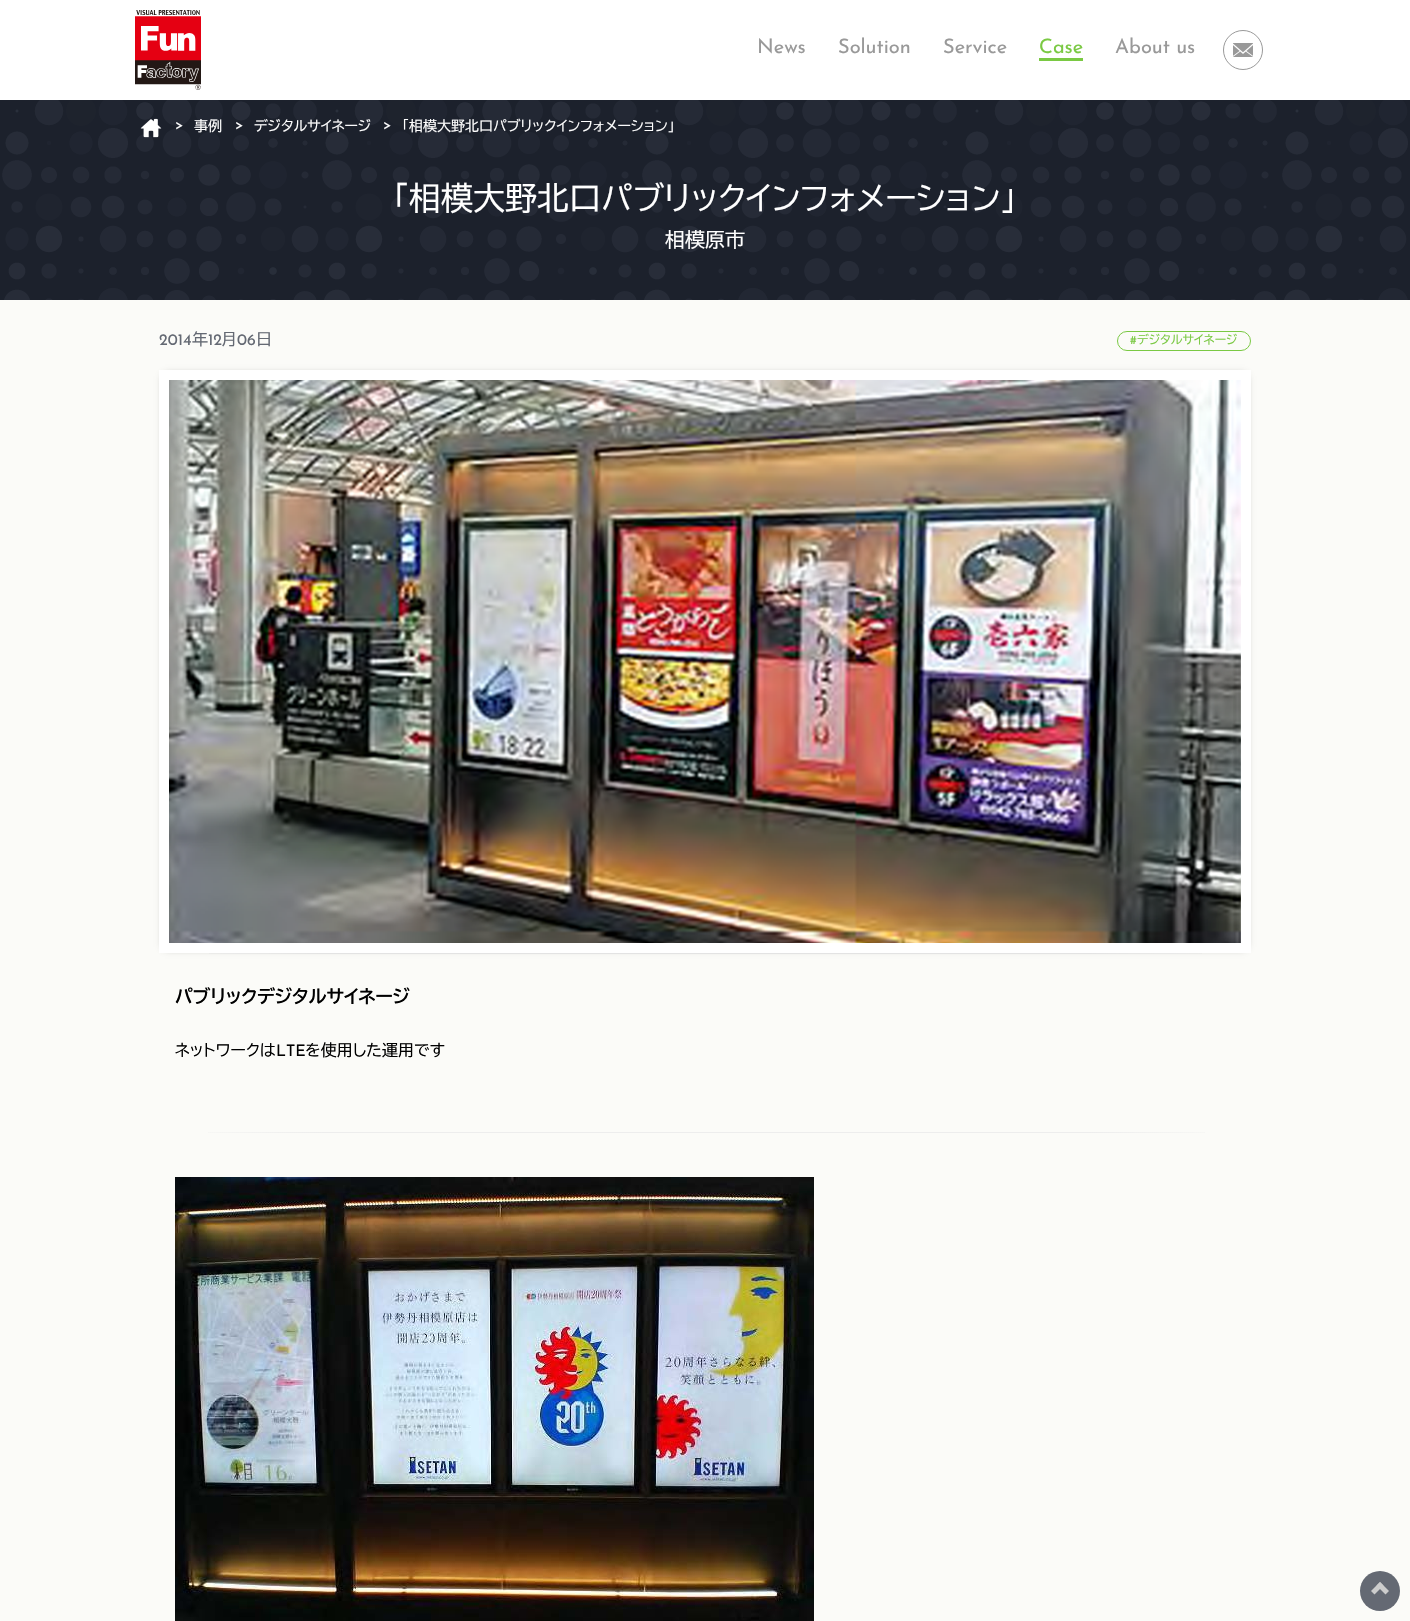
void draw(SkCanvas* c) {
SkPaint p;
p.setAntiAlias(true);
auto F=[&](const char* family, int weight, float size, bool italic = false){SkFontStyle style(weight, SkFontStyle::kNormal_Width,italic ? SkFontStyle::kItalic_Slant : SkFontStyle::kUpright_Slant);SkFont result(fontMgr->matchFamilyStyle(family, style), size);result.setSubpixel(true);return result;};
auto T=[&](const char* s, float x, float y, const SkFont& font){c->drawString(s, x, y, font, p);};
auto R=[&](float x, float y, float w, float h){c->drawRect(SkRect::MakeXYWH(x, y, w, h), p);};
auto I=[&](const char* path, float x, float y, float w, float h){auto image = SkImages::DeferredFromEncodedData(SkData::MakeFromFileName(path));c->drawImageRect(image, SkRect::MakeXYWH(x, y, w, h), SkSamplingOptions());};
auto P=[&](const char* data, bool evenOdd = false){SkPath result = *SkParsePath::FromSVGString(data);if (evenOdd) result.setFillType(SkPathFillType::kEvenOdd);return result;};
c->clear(0xfffbfbf8);
p.setColor(0xffffffff);
R(0,0,1410,100);
I("1.png",135,10,66,80);
auto f1 = F("Josefin Sans",100,20);
p.setColor(0xff999999);
T("News",757,53,f1);
T("Solution",838,53,f1);
T("Service",943,53,f1);
p.setColor(0xff7ac943);
R(1039,58,44,3);
T("Case",1039,53,f1);
p.setColor(0xff999999);
T("About us",1115,53,f1);
I("2.png",1233,43,20,14);
p.setStroke(true);
p.setStrokeWidth(1);
c->drawCircle(1243,50,19.5,p);
I("3.png",0,100,1410,200);
I("4.png",140,118,22,20);
auto f2 = F("Josefin Sans",100,14);
p.setStroke(false);
p.setColor(0xffffffff);
T(">",175,129,f2);
auto f3 = F("BIZ UDPGothic",400,14);
T("事例",194,131,f3);
T(">",235,129,f2);
T("デジタルサイネージ",254,131,f3);
T(">",383,129,f2);
T("「相模大野北口パブリックインフォメーション」",402,131,f3);
auto f4 = F("BIZ UDPGothic",400,32);
T("「相模大野北口パブリックインフォメーション」",393,210,f4);
auto f5 = F("BIZ UDPGothic",400,20);
T("相模原市",665,247,f5);
auto f6 = F("Josefin Sans",100,16);
p.setColor(0xff646973);
T("2014",159,345,f6);
auto f7 = F("BIZ UDPGothic",400,16);
T("年",192,345,f7);
T("12",208,345,f6);
T("月",221,345,f7);
T("06",237,345,f6);
T("日",256,345,f7);
p.setStroke(true);
p.setColor(0xff7ac943);
c->drawRoundRect(SkRect::MakeXYWH(1117.5,331.5,133,19),9.5,9.5,p);
auto f8 = F("Josefin Sans",100,12);
p.setStroke(false);
T("#",1130,344,f8);
auto f9 = F("BIZ UDPGothic",400,12);
T("デジタルサイネージ",1137,344,f9);
I("6.png",209,953,993,1);
p.setColor(0xbf000000);
p.setMaskFilter(SkMaskFilter::MakeBlur(kNormal_SkBlurStyle, 4));
c->drawRect(SkRect::MakeXYWH(165,376,1080,571),p);
p.setMaskFilter(nullptr);
p.setStroke(true);
p.setStrokeWidth(10);
p.setColor(0xffffffff);
c->drawRect(SkRect::MakeXYWH(164,375,1082,573),p);
I("5.png",169,380,1072,563);
auto f10 = F("BIZ UDPGothic",700,18);
p.setStroke(false);
p.setColor(0xff000000);
T("パブリックデジタルサイネージ",175,1003,f10);
T("ネットワークは",175,1056,f7);
T("LTE",276,1056,f6);
T("を使用した運用です",305,1056,f7);
I("7.png",208,1132,997,1);
I("8.png",175,1177,639,444);
p.setColor(0xff646973);
c->drawCircle(1380,1591,20,p);
p.setColor(0xffcccccc);
c->drawPath(P("M1371 1591l9-9l3.5 3.5l-9 9z"),p);
c->drawPath(P("M1376.5 1585.5l3.5-3.5l9 9l-3.5 3.5z"),p);
}
